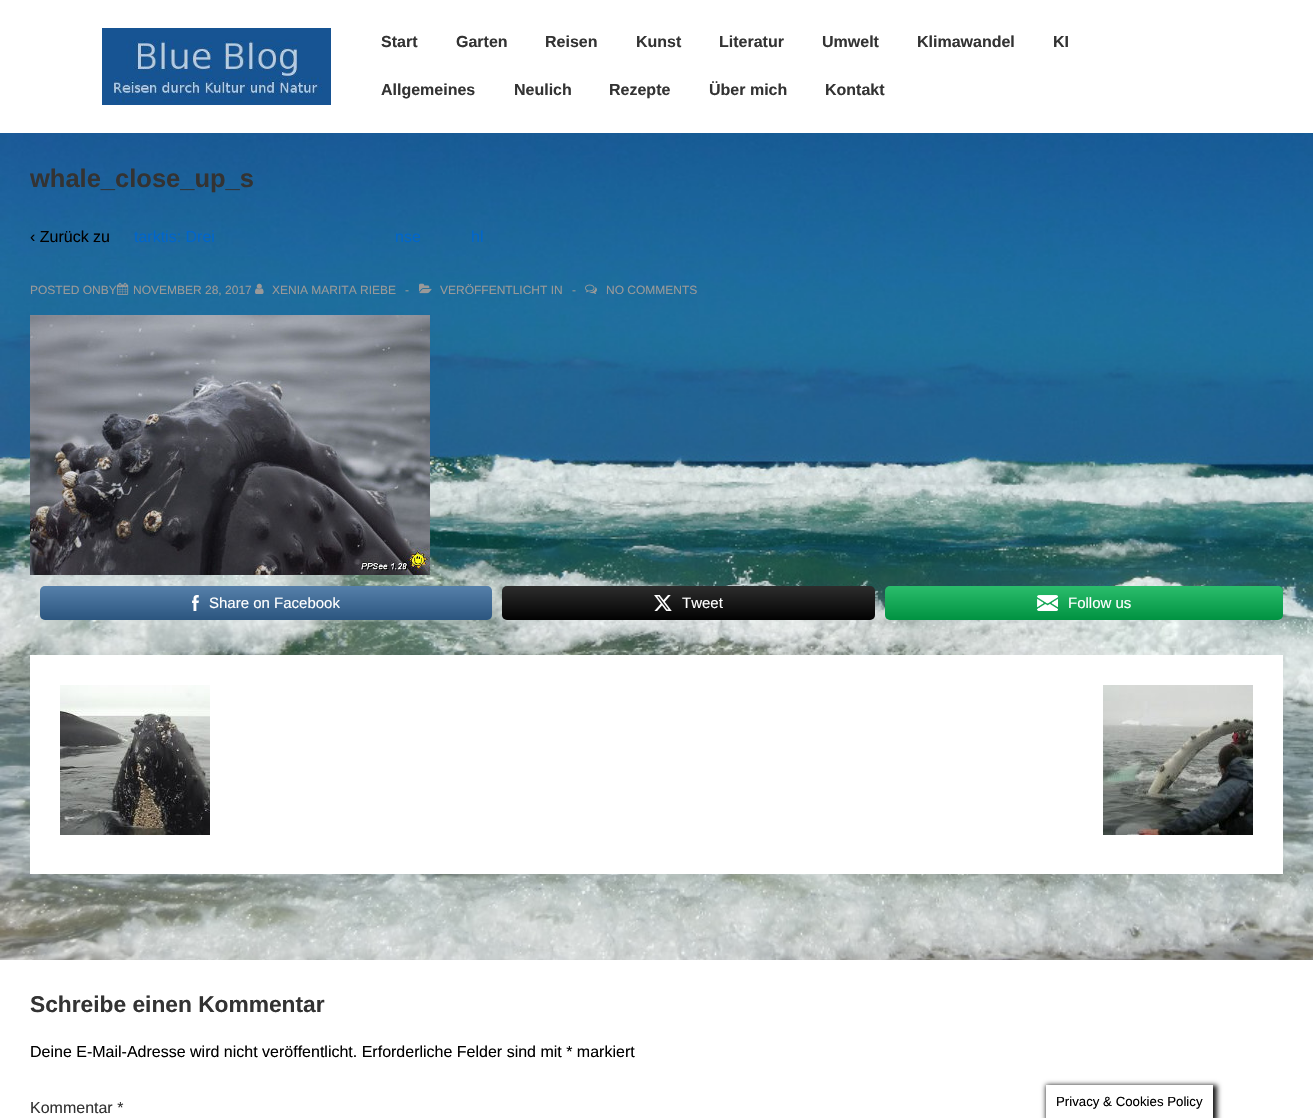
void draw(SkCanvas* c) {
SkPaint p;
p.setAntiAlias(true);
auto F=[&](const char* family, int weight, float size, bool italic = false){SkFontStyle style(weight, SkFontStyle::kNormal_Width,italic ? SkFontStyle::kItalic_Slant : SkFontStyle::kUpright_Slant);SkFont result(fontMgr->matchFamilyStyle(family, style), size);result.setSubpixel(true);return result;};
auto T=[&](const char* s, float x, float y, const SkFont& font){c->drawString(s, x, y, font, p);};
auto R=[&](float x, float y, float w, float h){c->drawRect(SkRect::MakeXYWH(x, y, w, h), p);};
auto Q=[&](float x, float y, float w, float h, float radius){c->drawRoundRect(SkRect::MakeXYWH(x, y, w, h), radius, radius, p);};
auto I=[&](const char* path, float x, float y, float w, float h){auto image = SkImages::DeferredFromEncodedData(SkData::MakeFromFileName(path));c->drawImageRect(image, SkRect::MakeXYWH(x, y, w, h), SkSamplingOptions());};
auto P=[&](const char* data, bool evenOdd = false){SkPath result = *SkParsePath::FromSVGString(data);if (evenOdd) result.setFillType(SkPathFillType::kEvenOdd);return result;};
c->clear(0xffffffff);
I("1.png",0,133,1313,827);
I("2.png",102,28,229,77);
auto f1 = F("Liberation Sans",700,16);
p.setColor(0xff333333);
T("Start",381,47,f1);
T("Garten",456,47,f1);
T("Reisen",545,47,f1);
T("Kunst",636,47,f1);
T("Literatur",719,47,f1);
T("Umwelt",822,47,f1);
T("Klimawandel",917,47,f1);
T("KI",1053,47,f1);
T("Allgemeines",381,95,f1);
T("Neulich",514,95,f1);
T("Rezepte",609,95,f1);
T("Über mich",709,95,f1);
T("Kontakt",825,95,f1);
auto f2 = F("Liberation Sans",700,25.5);
T("whale_close_up_s",30,187,f2);
auto f3 = F("Liberation Sans",400,16);
p.setColor(0xff000000);
T("‹ Zurück zu",30,242,f3);
p.setColor(0xff0066cc);
T("tarktis: Drei",134,242,f3);
T("nse",395,242,f3);
T("hl",471,242,f3);
auto f4 = F("Liberation Sans",400,12);
p.setColor(0xff999999);
T("POSTED ONBY",30,294,f4);
I("3.png",117,282,12,13);
T("NOVEMBER 28, 2017",133,294,f4);
I("4.png",255,283,9,11);
T("XENIA MARITA RIEBE",272,294,f4);
T("-",405,294,f4);
I("5.png",419,283,13,11);
T("VERÖFFENTLICHT IN",440,294,f4);
T("-",572,294,f4);
I("6.png",585,284,12,10);
T("NO COMMENTS",606,294,f4);
I("7.png",30,315,400,260);
p.setColor(0xff336699);
Q(40,586,452,34,5);
{
const SkColor colors[] = {0x2b000000,0x2bffffff};
const float stops[] = {0,1};
const SkPoint ends[] = {{266,620}, {266,586}};
p.setShader(SkGradientShader::MakeLinear(ends, colors, stops, 2, SkTileMode::kClamp));
p.setAlpha(255);
}
Q(40,586,452,34,5);
I("8.png",192,595,7,16);
auto f5 = F("Liberation Sans",400,15);
p.setShader(nullptr);
p.setColor(0xffffffff);
T("Share on Facebook",209,608,f5);
p.setColor(0xff020202);
Q(502,586,373,34,5);
{
const SkColor colors[] = {0x2b000000,0x2bffffff};
const float stops[] = {0,1};
const SkPoint ends[] = {{689,620}, {689,586}};
p.setShader(SkGradientShader::MakeLinear(ends, colors, stops, 2, SkTileMode::kClamp));
p.setAlpha(255);
}
Q(502,586,373,34,5);
I("9.png",654,595,18,16);
p.setShader(nullptr);
p.setColor(0xffffffff);
T("Tweet",682,608,f5);
p.setColor(0xff00b04e);
Q(885,586,398,34,5);
{
const SkColor colors[] = {0x2b000000,0x2bffffff};
const float stops[] = {0,1};
const SkPoint ends[] = {{1084,620}, {1084,586}};
p.setShader(SkGradientShader::MakeLinear(ends, colors, stops, 2, SkTileMode::kClamp));
p.setAlpha(255);
}
Q(885,586,398,34,5);
I("10.png",1037,595,21,16);
p.setShader(nullptr);
p.setColor(0xffffffff);
T("Follow us",1068,608,f5);
R(30,655,1253,219);
I("11.png",60,685,150,150);
I("12.png",1103,685,150,150);
auto f6 = F("Liberation Sans",700,22.75);
p.setColor(0xff333333);
T("Schreibe einen Kommentar",30,1012,f6);
p.setColor(0xff000000);
T("Deine E-Mail-Adresse wird nicht veröffentlicht. Erforderliche Felder sind mit * markiert",30,1057,f3);
p.setColor(0xff333333);
T("Kommentar *",30,1113,f3);
c->save();
c->clipPath(P("M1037 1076h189v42h-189zm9 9h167v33h-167z",true),true);
p.setColor(0xff161616);
p.setMaskFilter(SkMaskFilter::MakeBlur(kNormal_SkBlurStyle, 2.5));
c->drawRect(SkRect::MakeXYWH(1046,1085,171,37),p);
p.setMaskFilter(nullptr);
c->restore();
auto f7 = F("Liberation Sans",400,13.25);
p.setColor(0xff000000);
T("Privacy & Cookies Policy",1056,1106,f7);
}
